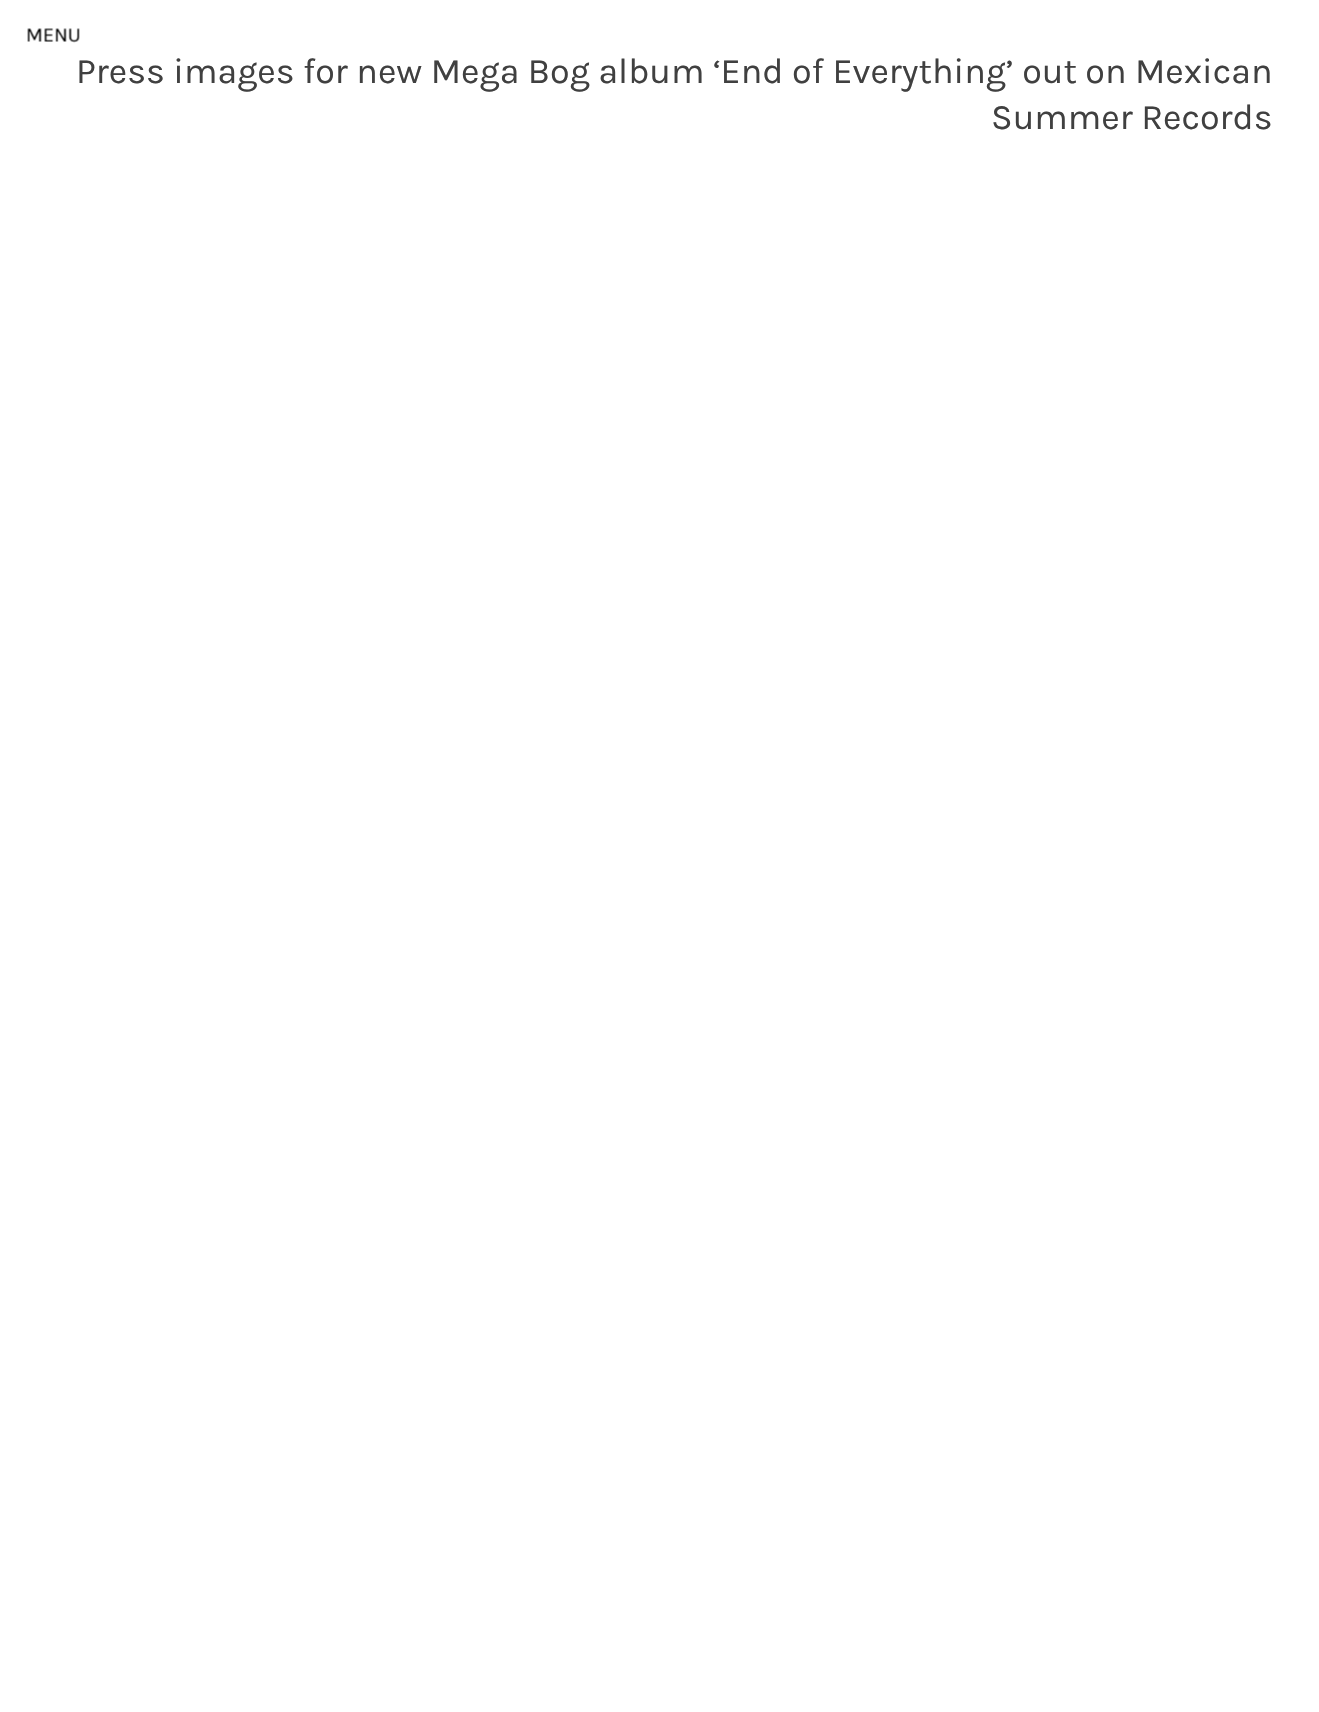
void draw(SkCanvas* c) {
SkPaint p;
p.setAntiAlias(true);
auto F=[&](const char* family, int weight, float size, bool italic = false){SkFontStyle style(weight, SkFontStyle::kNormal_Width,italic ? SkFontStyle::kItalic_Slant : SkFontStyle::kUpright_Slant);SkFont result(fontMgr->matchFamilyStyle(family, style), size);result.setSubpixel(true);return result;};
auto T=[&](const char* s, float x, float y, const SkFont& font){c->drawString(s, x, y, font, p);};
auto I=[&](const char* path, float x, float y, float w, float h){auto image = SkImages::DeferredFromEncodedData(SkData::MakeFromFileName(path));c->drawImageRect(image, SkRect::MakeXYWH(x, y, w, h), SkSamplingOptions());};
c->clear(0xffffffff);
I("1.png",27,28,53,15);
auto f1 = F("Karla",400,35.8);
p.setColor(0xff404040);
T("Press images for new Mega Bog album ‘End of Everything’ out on Mexican",76,83,f1);
T("Summer Records",991,129,f1);
}
